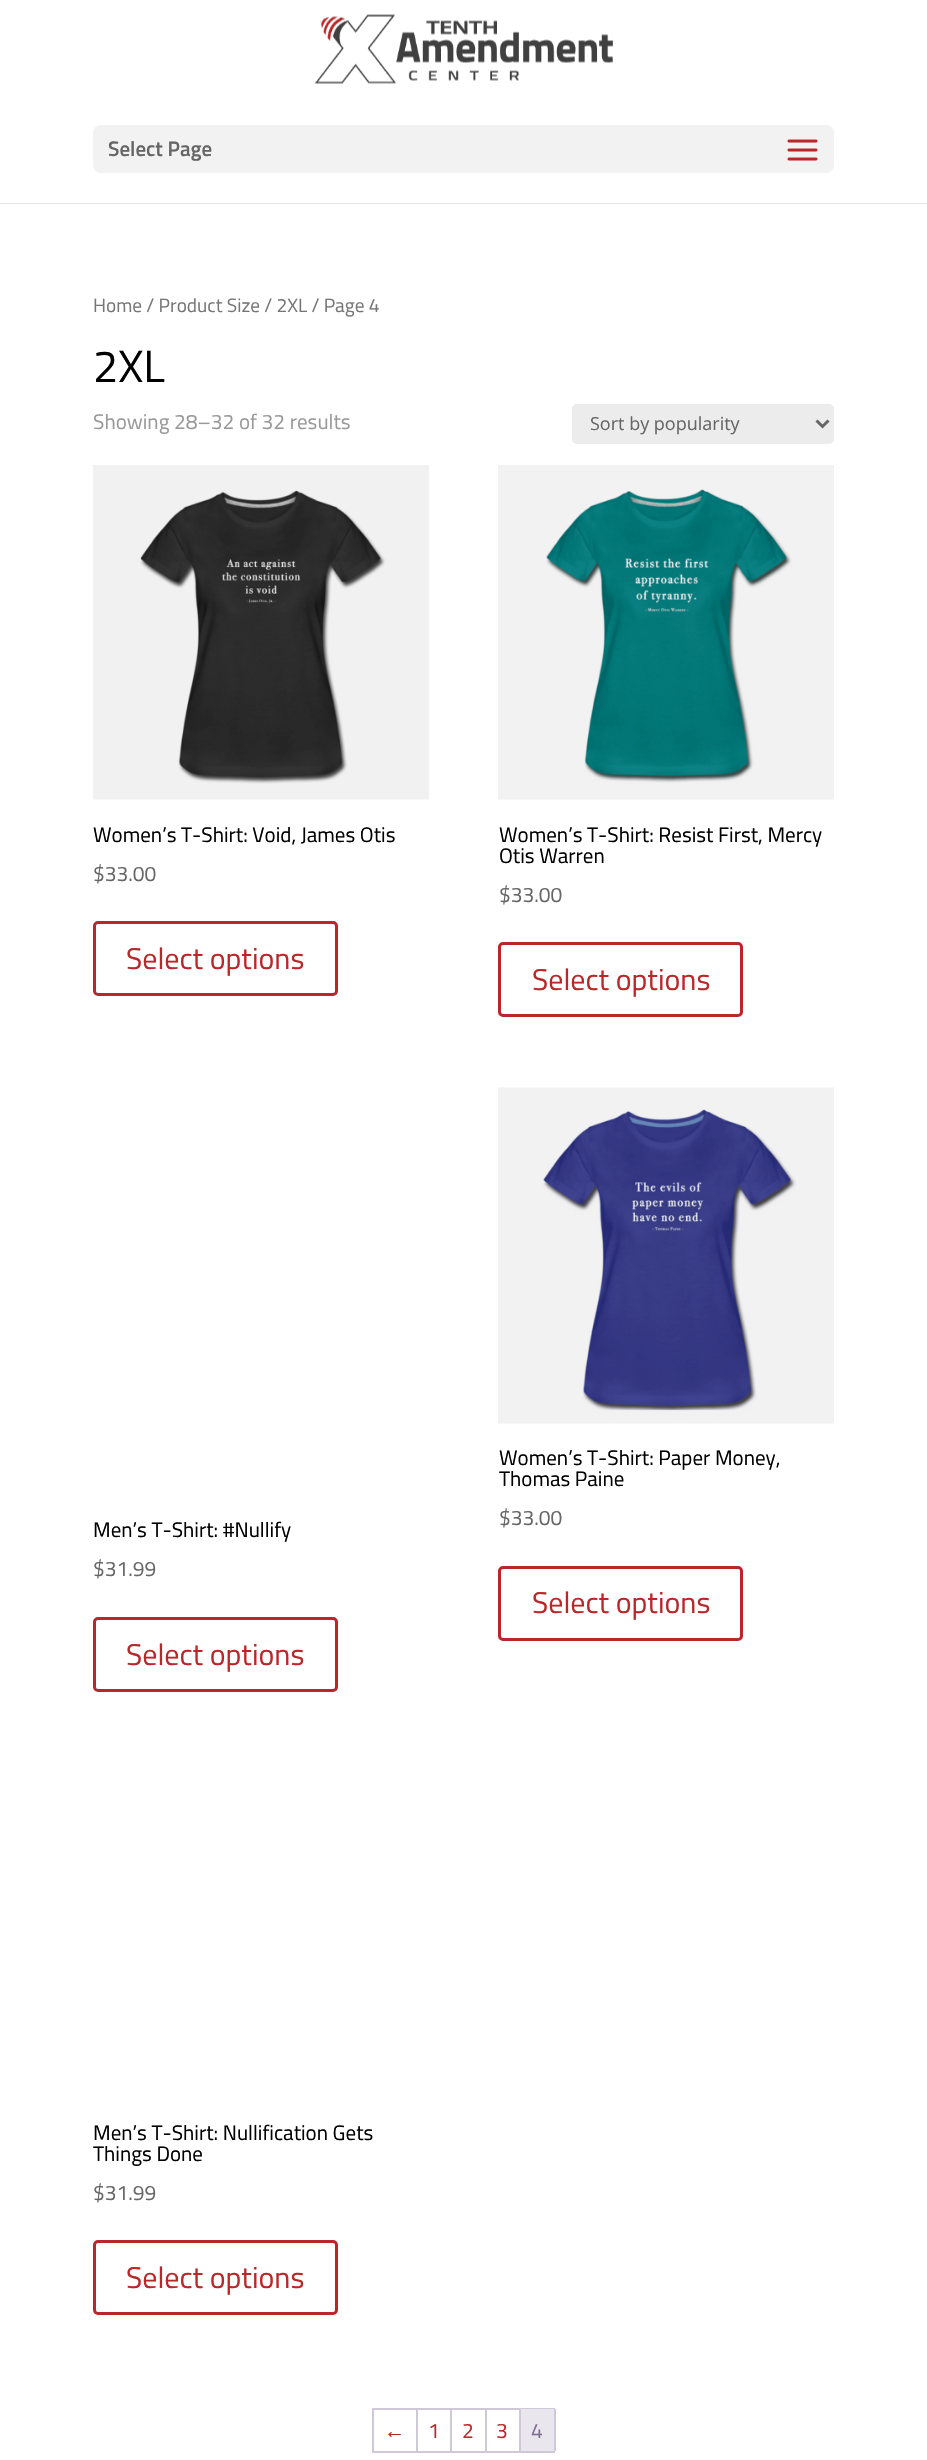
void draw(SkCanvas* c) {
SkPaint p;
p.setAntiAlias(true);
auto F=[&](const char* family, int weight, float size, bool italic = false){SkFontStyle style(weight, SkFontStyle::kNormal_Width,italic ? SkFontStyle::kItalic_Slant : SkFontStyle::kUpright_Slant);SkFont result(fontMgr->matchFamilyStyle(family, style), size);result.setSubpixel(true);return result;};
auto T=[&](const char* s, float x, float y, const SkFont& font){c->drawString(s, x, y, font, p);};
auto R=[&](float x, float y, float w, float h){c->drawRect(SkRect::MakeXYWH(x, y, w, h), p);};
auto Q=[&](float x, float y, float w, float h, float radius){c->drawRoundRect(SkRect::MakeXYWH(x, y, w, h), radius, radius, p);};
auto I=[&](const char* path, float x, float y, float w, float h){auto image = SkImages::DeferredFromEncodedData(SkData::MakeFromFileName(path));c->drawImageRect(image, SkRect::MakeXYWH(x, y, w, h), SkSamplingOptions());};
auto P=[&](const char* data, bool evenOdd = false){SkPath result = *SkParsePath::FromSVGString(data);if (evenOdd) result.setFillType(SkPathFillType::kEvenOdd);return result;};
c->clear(0xffffffff);
p.setColor(0xffe6e6e6);
R(0,203,927,1);
I("1.png",315,14,298,70);
p.setColor(0xfff2f2f2);
Q(93,125,741,48,8);
auto f1 = F("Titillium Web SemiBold",600,21);
p.setColor(0xff666666);
T("Select Page",108,156,f1);
I("2.png",787,139,31,22);
auto f2 = F("Titillium Web",400,19.3);
p.setColor(0xff767676);
T("Home / Product Size / 2XL / Page 4",93,312,f2);
auto f3 = F("Titillium Web",400,45);
p.setColor(0xff000000);
T("2XL",93,382,f3);
auto f4 = F("Titillium Web",400,21);
p.setColor(0xff999999);
T("Showing 28–32 of 32 results",93,429,f4);
p.setColor(0xffececec);
Q(572,404,262,40,5);
p.setStroke(true);
p.setStrokeWidth(3);
p.setColor(0xff666666);
c->drawPath(P("M816.5 420.5l6 6l6-6"),p);
auto f5 = F("Open Sans",400,18);
p.setStroke(false);
T("Sort by popularity",590,430,f5);
I("3.png",93,465,336,335);
p.setColor(0xff000000);
T("Women’s T-Shirt: Void, James Otis",93,842,f4);
p.setColor(0xff666666);
T("$33.00",93,881,f4);
p.setStroke(true);
p.setColor(0xffbb2729);
c->drawRoundRect(SkRect::MakeXYWH(94.5,922.5,242,72),3.5,3.5,p);
auto f6 = F("Titillium Web",400,30);
p.setStroke(false);
T("Select options",126,969,f6);
I("4.png",498,465,336,335);
p.setColor(0xff000000);
T("Women’s T-Shirt: Resist First, Mercy",499,842,f4);
T("Otis Warren",499,863,f4);
p.setColor(0xff666666);
T("$33.00",499,902,f4);
p.setStroke(true);
p.setColor(0xffbb2729);
c->drawRoundRect(SkRect::MakeXYWH(499.5,943.5,242,72),3.5,3.5,p);
p.setStroke(false);
T("Select options",532,990,f6);
p.setColor(0xff000000);
T("Men’s T-Shirt: #Nullify",93,1537,f4);
p.setColor(0xff666666);
T("$31.99",93,1576,f4);
p.setStroke(true);
p.setColor(0xffbb2729);
c->drawRoundRect(SkRect::MakeXYWH(94.5,1618.5,242,72),3.5,3.5,p);
p.setStroke(false);
T("Select options",126,1665,f6);
I("5.png",498,1087,336,337);
p.setColor(0xff000000);
T("Women’s T-Shirt: Paper Money,",499,1465,f4);
T("Thomas Paine",499,1486,f4);
p.setColor(0xff666666);
T("$33.00",499,1525,f4);
p.setStroke(true);
p.setColor(0xffbb2729);
c->drawRoundRect(SkRect::MakeXYWH(499.5,1567.5,242,72),3.5,3.5,p);
p.setStroke(false);
T("Select options",532,1613,f6);
p.setColor(0xff000000);
T("Men’s T-Shirt: Nullification Gets",93,2140,f4);
T("Things Done",93,2161,f4);
p.setColor(0xff666666);
T("$31.99",93,2200,f4);
p.setStroke(true);
p.setColor(0xffbb2729);
c->drawRoundRect(SkRect::MakeXYWH(94.5,2241.5,242,72),3.5,3.5,p);
p.setStroke(false);
T("Select options",126,2288,f6);
p.setColor(0xffcfc8d8);
R(372,2408,183,2);
R(372,2451,183,2);
R(372,2408,2,45);
R(416,2409,2,42);
auto f7 = F("Liberation Sans",400,21);
p.setColor(0xffbb2729);
T("←",384,2438,f7);
p.setColor(0xffcfc8d8);
R(450,2409,2,42);
p.setColor(0xffbb2729);
T("1",428,2438,f4);
p.setColor(0xffcfc8d8);
R(485,2409,2,42);
p.setColor(0xffbb2729);
T("2",462,2438,f4);
p.setColor(0xffcfc8d8);
R(519,2409,2,42);
p.setColor(0xffbb2729);
T("3",496,2438,f4);
p.setColor(0xffcfc8d8);
R(554,2409,2,42);
p.setColor(0xffe9e6ed);
R(521,2409,33,42);
p.setColor(0xff816f98);
T("4",531,2438,f4);
}
